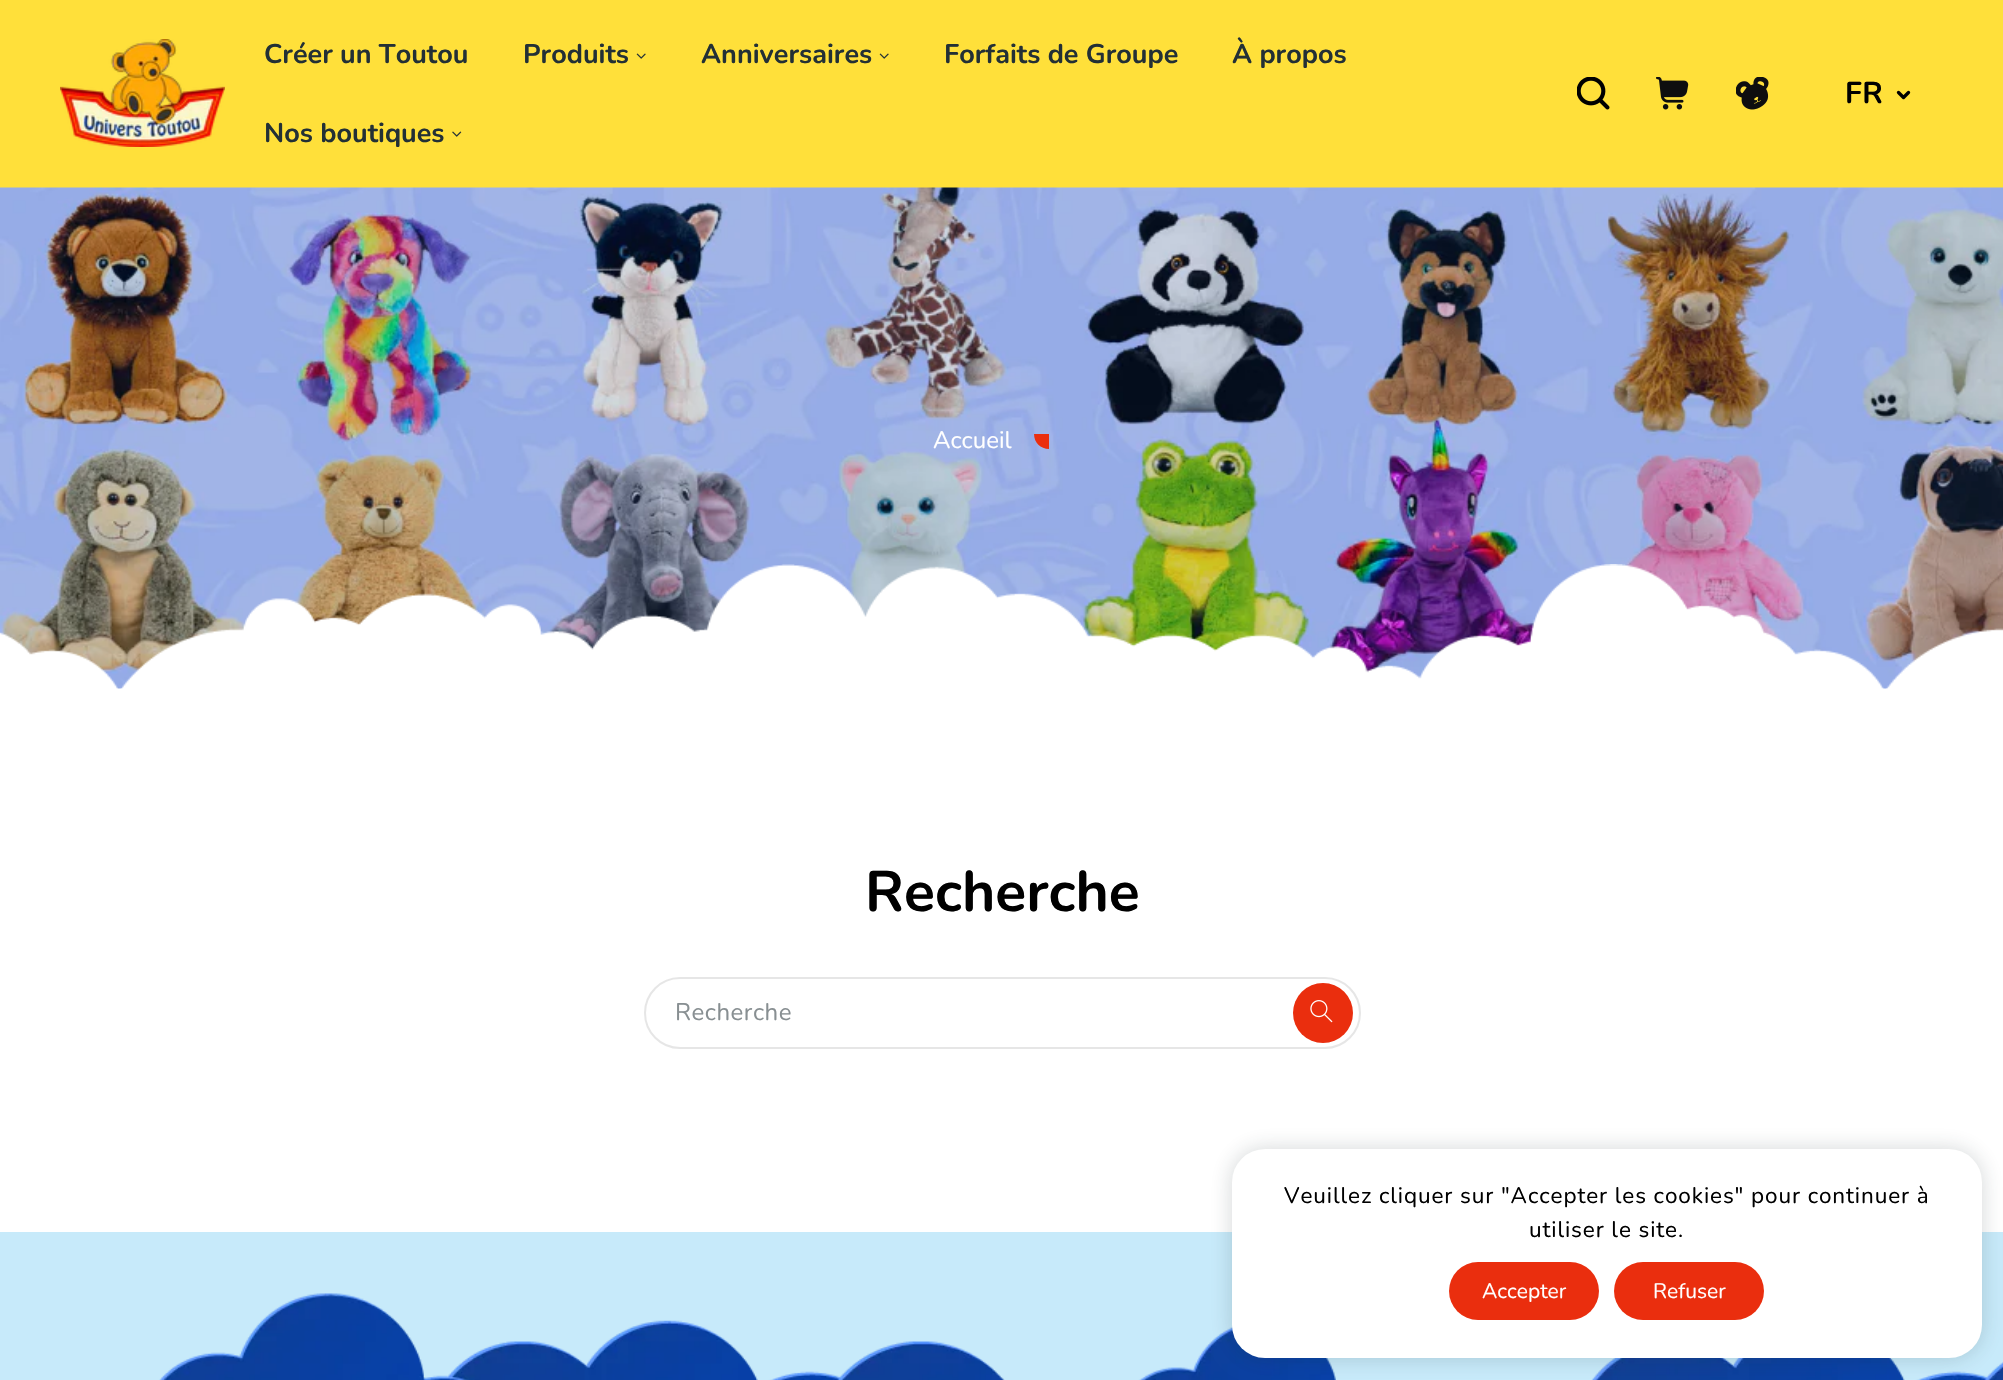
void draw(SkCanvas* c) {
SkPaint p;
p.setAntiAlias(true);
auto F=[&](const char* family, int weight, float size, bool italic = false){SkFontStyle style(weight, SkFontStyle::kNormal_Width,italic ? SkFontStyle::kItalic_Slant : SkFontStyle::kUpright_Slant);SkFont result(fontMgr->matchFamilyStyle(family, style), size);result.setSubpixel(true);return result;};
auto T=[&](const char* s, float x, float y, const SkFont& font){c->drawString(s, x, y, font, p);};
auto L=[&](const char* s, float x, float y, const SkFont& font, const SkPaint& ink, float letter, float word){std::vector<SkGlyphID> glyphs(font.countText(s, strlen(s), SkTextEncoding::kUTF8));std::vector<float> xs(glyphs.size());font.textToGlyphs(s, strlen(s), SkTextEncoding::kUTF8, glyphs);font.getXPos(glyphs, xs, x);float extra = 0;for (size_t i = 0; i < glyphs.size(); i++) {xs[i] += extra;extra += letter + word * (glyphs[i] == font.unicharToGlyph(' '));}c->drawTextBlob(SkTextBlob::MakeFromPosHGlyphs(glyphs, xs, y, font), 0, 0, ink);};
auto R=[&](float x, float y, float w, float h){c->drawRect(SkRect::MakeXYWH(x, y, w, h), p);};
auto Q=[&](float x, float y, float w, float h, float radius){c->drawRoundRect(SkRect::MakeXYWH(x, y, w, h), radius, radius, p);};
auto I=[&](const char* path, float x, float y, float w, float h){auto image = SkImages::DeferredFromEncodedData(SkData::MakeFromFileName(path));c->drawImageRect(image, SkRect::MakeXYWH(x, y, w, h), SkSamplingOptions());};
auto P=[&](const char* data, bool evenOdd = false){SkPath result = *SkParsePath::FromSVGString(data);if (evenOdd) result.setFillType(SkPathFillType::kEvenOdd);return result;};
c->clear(0xffffffff);
p.setColor(0xffffe03a);
R(0,0,2003,188);
I("1.png",60,39,165,108);
auto f1 = F("Nunito",700,27);
p.setColor(0xff233035);
T("Créer un Toutou",264,63,f1);
T("Produits",523,63,f1);
I("2.png",636,53,10,6);
T("Anniversaires",701,63,f1);
I("2.png",879,53,10,6);
T("Forfaits de Groupe",944,63,f1);
T("À propos",1232,63,f1);
T("Nos boutiques",264,142,f1);
I("3.png",452,131,10,6);
I("4.png",1577,77,33,33);
I("5.png",1656,77,33,33);
I("6.png",1736,77,33,33);
auto f2 = F("Nunito",700,30);
p.setColor(0xff000000);
L("FR",1845,103,f2,p,.5,0);
p.setStroke(true);
p.setStrokeWidth(3.3);
p.setStrokeCap(SkPaint::kRound_Cap);
p.setStrokeJoin(SkPaint::kRound_Join);
c->drawPath(P("M1898.5 92.5l5 5l5-5"),p);
I("7.png",0,187,2003,502);
auto f3 = F("Nunito",400,24);
p.setStroke(false);
p.setColor(0xffffffff);
T("Accueil",933,448,f3);
p.setColor(0xffea2e0e);
c->drawPath(P("M1034 434h15v15c-8.5 0-15-6.5-15-15z"),p);
I("8.png",0,564,2003,125);
auto f4 = F("Nunito",700,57);
p.setColor(0xff000000);
T("Recherche",865,911,f4);
p.setStroke(true);
p.setStrokeWidth(2);
p.setStrokeCap(SkPaint::kButt_Cap);
p.setStrokeJoin(SkPaint::kMiter_Join);
p.setColor(0xffe6e6e6);
c->drawRoundRect(SkRect::MakeXYWH(645,978,715,70),35,35,p);
p.setStroke(false);
p.setColor(0xff888f92);
L("Recherche",675,1020,f3,p,.5,0);
p.setColor(0xffea2e0e);
c->drawCircle(1323,1013,30,p);
I("9.png",1310,1000,23,23);
p.setColor(0xffc7eafa);
R(0,1232,2003,148);
I("10.png",159,1293,1844,87);
p.setColor(0x33233035);
p.setMaskFilter(SkMaskFilter::MakeBlur(kNormal_SkBlurStyle, 11));
c->drawRoundRect(SkRect::MakeXYWH(1232,1149,750,209),33,33,p);
p.setMaskFilter(nullptr);
p.setColor(0xffffffff);
Q(1232,1149,750,209,33);
auto f5 = F("Nunito",400,22.5);
p.setColor(0xff000000);
L("Veuillez cliquer sur \"Accepter les cookies\" pour continuer à",1284,1203,f5,p,.9,0);
L("utiliser le site.",1529,1237,f5,p,.9,0);
p.setColor(0xffea2e0e);
Q(1449,1262,150,58,29);
auto f6 = F("Nunito",400,21);
p.setColor(0xffffffff);
T("Accepter",1482,1298,f6);
p.setColor(0xffea2e0e);
Q(1614,1262,150,58,29);
p.setColor(0xffffffff);
T("Refuser",1653,1298,f6);
}
